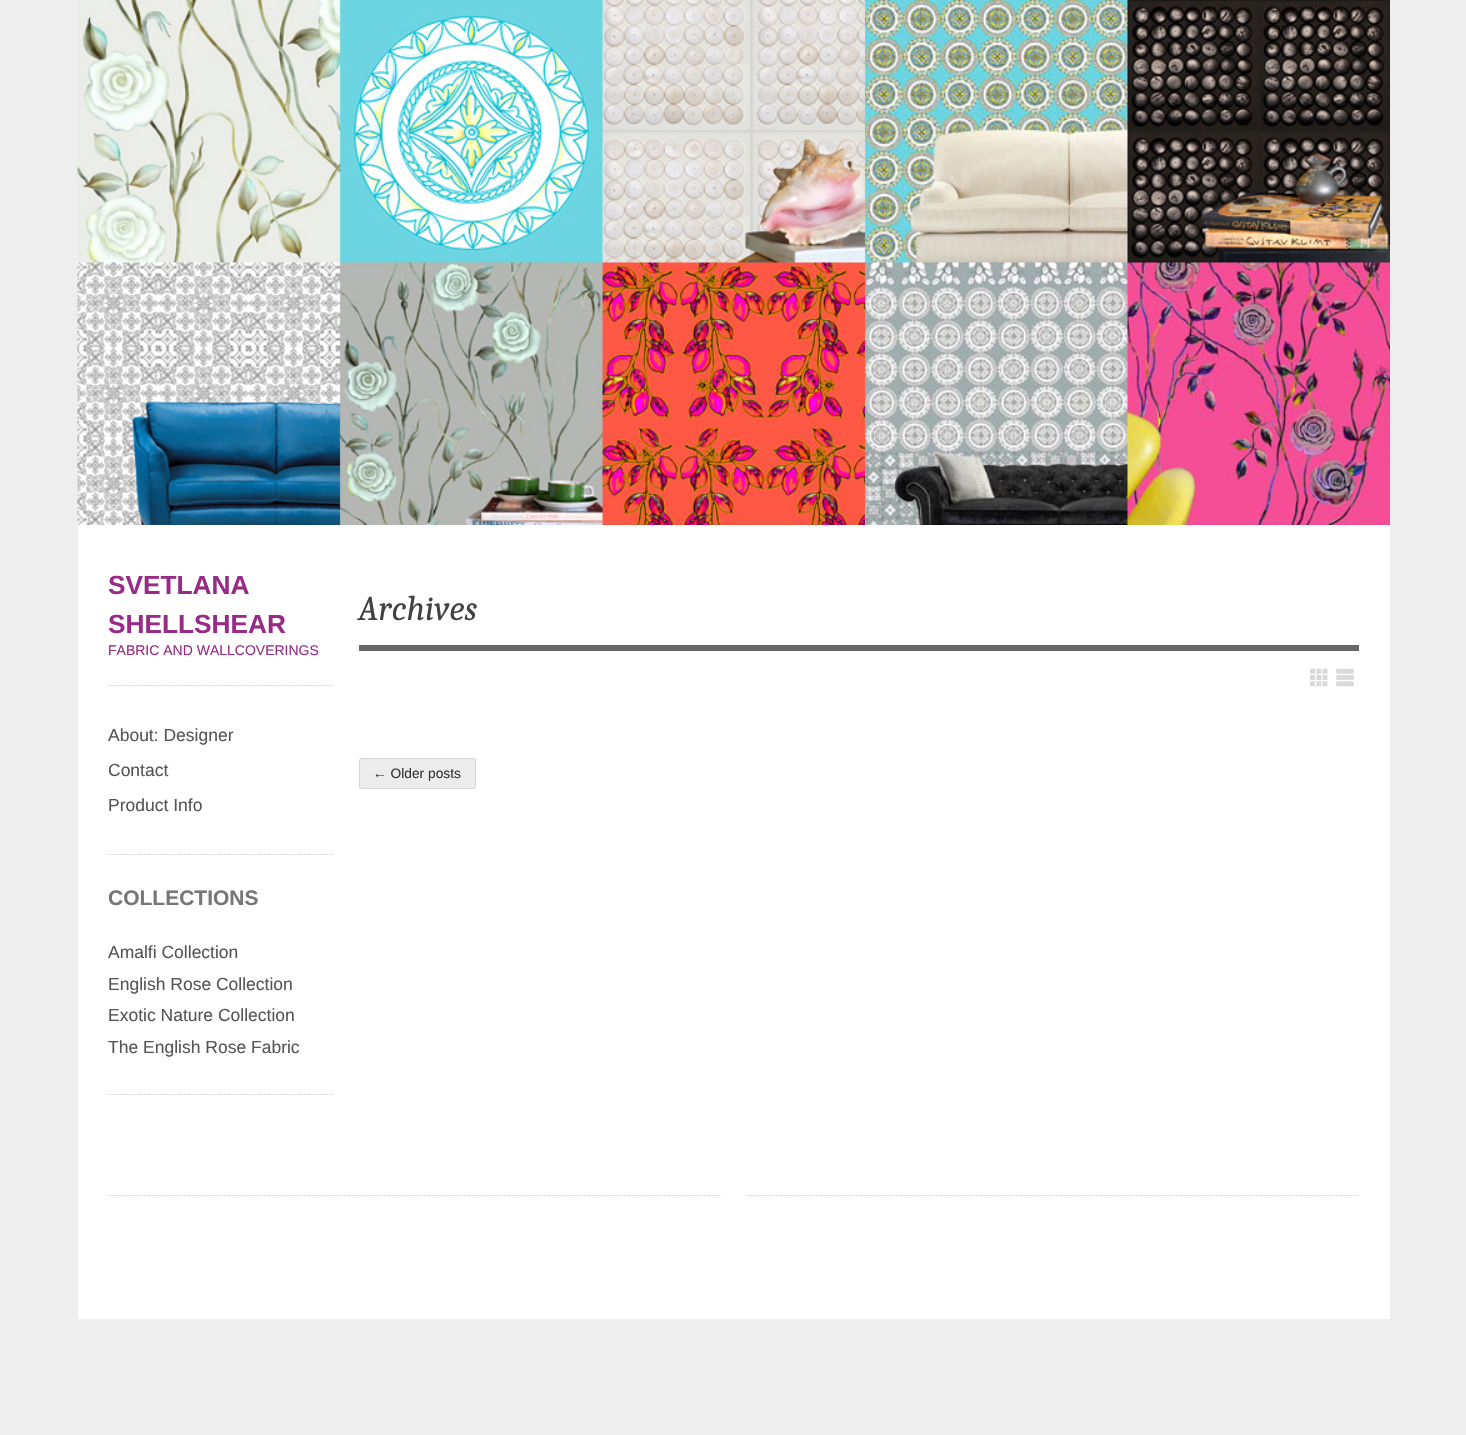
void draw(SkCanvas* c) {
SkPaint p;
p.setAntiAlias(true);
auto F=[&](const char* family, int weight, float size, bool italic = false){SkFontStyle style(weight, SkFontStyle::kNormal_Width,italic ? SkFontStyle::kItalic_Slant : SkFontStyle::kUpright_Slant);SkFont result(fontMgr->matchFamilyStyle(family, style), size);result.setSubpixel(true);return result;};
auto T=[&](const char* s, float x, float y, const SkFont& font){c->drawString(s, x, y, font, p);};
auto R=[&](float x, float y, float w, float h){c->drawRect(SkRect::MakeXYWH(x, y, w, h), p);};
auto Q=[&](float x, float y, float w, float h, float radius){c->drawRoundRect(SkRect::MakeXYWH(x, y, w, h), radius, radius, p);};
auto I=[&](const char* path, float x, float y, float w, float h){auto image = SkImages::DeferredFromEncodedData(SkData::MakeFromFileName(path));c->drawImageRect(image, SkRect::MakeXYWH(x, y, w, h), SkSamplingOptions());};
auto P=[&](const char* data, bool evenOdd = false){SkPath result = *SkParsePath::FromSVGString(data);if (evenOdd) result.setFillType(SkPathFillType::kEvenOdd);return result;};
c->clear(0xffeeeeee);
p.setColor(0xffffffff);
R(78,525,1312,794);
I("1.png",77,0,1313,525);
p.setStroke(true);
p.setStrokeWidth(1.2);
p.setColor(0xffcccccc);
p.setPathEffect(SkDashPathEffect::Make({{1.25f,1.25f}}, 0));
c->drawPath(P("M109 685.5h225"),p);
p.setPathEffect(nullptr);
auto f1 = F("Liberation Sans",700,26.25);
p.setStroke(false);
p.setColor(0xff972b87);
T("SVETLANA",108,594,f1);
T("SHELLSHEAR",108,633,f1);
auto f2 = F("Liberation Sans",400,14);
T("FABRIC AND WALLCOVERINGS",108,655,f2);
p.setStroke(true);
p.setColor(0xffcccccc);
p.setPathEffect(SkDashPathEffect::Make({{1.25f,1.25f}}, 0));
c->drawPath(P("M109 854.5h225"),p);
p.setPathEffect(nullptr);
auto f3 = F("Liberation Sans",400,17.5);
p.setStroke(false);
p.setColor(0xff555555);
T("About: Designer",108,741,f3);
T("Contact",108,776,f3);
T("Product Info",108,811,f3);
p.setColor(0xff666666);
R(359,645,1000,6);
auto f4 = F("Caladea",400,35,true);
p.setColor(0xff424242);
T("Archives",358,620,f4);
I("2.png",1310,668,18,19);
I("3.png",1336,668,18,19);
p.setColor(0xffececec);
Q(360,759,115,29,1);
p.setStroke(true);
p.setStrokeWidth(1);
p.setColor(0xffd4d4d4);
c->drawRoundRect(SkRect::MakeXYWH(359.5,758.5,116,30),2,2,p);
auto f5 = F("Liberation Sans",400,13.75);
p.setStroke(false);
p.setColor(0xff333333);
T("← Older posts",373,778,f5);
p.setStroke(true);
p.setStrokeWidth(1.2);
p.setColor(0xffcccccc);
p.setPathEffect(SkDashPathEffect::Make({{1.25f,1.25f}}, 0));
c->drawPath(P("M109 1094.5h225"),p);
p.setPathEffect(nullptr);
auto f6 = F("Liberation Sans",700,21);
p.setStroke(false);
p.setColor(0xff777777);
T("COLLECTIONS",108,905,f6);
p.setColor(0xff555555);
T("Amalfi Collection",108,958,f3);
T("English Rose Collection",108,990,f3);
T("Exotic Nature Collection",108,1021,f3);
T("The English Rose Fabric",108,1053,f3);
c->save();
c->clipRect(SkRect::MakeXYWH(109,1195,1250,71));
p.setStroke(true);
p.setColor(0xffcccccc);
p.setPathEffect(SkDashPathEffect::Make({{1.25f,1.25f}}, 0));
c->drawPath(P("M109 1195.5h612"),p);
p.setPathEffect(nullptr);
p.setPathEffect(SkDashPathEffect::Make({{1.25f,1.25f}}, 0));
c->drawPath(P("M746 1195.5h613"),p);
p.setPathEffect(nullptr);
c->restore();
}
